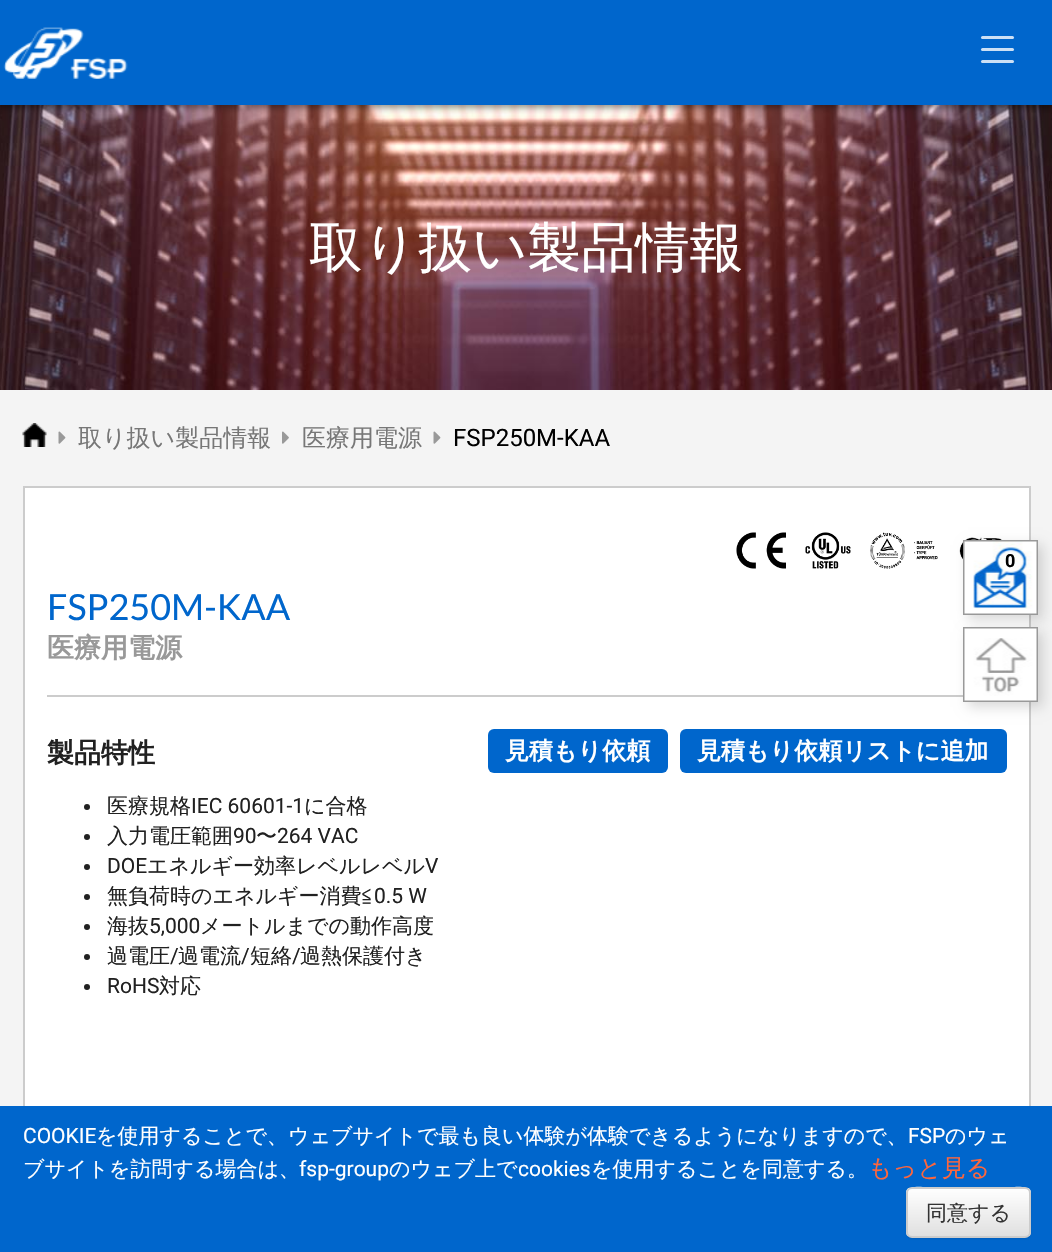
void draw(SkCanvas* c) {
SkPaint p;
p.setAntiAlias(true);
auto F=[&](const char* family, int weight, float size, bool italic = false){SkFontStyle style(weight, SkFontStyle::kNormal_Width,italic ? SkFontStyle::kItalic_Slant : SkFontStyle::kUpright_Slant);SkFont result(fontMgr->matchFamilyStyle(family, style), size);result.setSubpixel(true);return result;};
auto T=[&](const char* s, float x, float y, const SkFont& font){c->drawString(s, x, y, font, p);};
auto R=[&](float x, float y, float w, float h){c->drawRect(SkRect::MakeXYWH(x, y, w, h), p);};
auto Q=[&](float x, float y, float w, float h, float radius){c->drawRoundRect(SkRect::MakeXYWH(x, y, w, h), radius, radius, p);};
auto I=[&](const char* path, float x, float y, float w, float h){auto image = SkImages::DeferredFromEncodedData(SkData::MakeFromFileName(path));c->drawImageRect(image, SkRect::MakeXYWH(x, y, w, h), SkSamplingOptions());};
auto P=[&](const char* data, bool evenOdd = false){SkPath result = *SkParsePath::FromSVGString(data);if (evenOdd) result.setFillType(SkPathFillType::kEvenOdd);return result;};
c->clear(0xfff4f4f4);
I("2.png",0,105,1052,285);
p.setColor(0x66000000);
p.setMaskFilter(SkMaskFilter::MakeBlur(kNormal_SkBlurStyle, 3));
c->drawRect(SkRect::MakeXYWH(0,3,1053,105),p);
p.setMaskFilter(nullptr);
p.setColor(0xff0066cc);
R(0,0,1052,105);
I("1.png",3,27,125,52);
p.setColor(0xffcce0f5);
Q(981,36,33,3,1.5);
Q(981,48,33,3,1.5);
Q(981,60,33,3,1.5);
auto f1 = F("WenQuanYi Zen Hei",500,54);
p.setColor(0xffffffff);
T("取り扱い製品情報",309,266,f1);
I("3.png",22,423,25,24);
I("4.png",58,431,8,13);
auto f2 = F("WenQuanYi Zen Hei",500,24);
p.setColor(0xff777777);
T("取り扱い製品情報",78,446,f2);
I("5.png",282,431,7,13);
T("医療用電源",302,446,f2);
I("4.png",433,431,8,13);
auto f3 = F("Roboto",400,24);
p.setColor(0xff000000);
T("FSP250M-KAA",453,446,f3);
p.setColor(0xffffffff);
R(25,488,1004,618);
p.setStroke(true);
p.setStrokeWidth(2);
p.setColor(0xffcccccc);
c->drawRect(SkRect::MakeXYWH(24,487,1006,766),p);
I("6.png",736,532,50,37);
I("7.png",805,532,46,37);
I("8.png",870,532,68,37);
I("9.png",959,537,46,27);
auto f4 = F("Lato",400,36);
p.setStroke(false);
p.setColor(0xff0066cc);
T("FSP250M-KAA",47,620,f4);
auto f5 = F("WenQuanYi Zen Hei",700,27);
p.setColor(0xff999999);
T("医療用電源",47,657,f5);
p.setColor(0xffcccccc);
R(47,695,916,2);
p.setColor(0xff212121);
T("製品特性",47,762,f5);
c->drawCircle(87,807,3,p);
auto f6 = F("WenQuanYi Zen Hei",500,21);
T("医療規格",107,813,f6);
auto f7 = F("Roboto",400,21);
T("IEC 60601-1",191,813,f7);
T("に合格",304,813,f6);
c->drawCircle(87,837,3,p);
T("入力電圧範囲",107,843,f6);
T("90",233,843,f7);
T("〜",256,843,f6);
T("264 VAC",277,843,f7);
c->drawCircle(87,867,3,p);
T("DOE",107,873,f7);
T("エネルギー効率レベルレベル",147,873,f6);
T("V",425,873,f7);
c->drawCircle(87,897,3,p);
T("無負荷時のエネルギー消費≦",107,903,f6);
T("0.5 W",374,903,f7);
c->drawCircle(87,927,3,p);
T("海抜",107,933,f6);
T("5,000",149,933,f7);
T("メートルまでの動作高度",200,933,f6);
c->drawCircle(87,957,3,p);
T("過電圧",107,963,f6);
T("/",170,963,f7);
T("過電流",178,963,f6);
T("/",241,963,f7);
T("短絡",250,963,f6);
T("/",292,963,f7);
T("過熱保護付き",300,963,f6);
c->drawCircle(87,987,3,p);
T("RoHS",107,993,f7);
T("対応",159,993,f6);
p.setColor(0xff0066cc);
Q(488,729,180,44,6);
auto f8 = F("WenQuanYi Zen Hei",700,24);
p.setColor(0xffffffff);
T("見積もり依頼",505,759,f8);
p.setColor(0xff0066cc);
Q(680,729,327,44,6);
p.setColor(0xffffffff);
T("見積もり依頼リストに追加",697,759,f8);
p.setColor(0x26000000);
p.setMaskFilter(SkMaskFilter::MakeBlur(kNormal_SkBlurStyle, 6));
c->drawRect(SkRect::MakeXYWH(968,545,75,75),p);
p.setMaskFilter(nullptr);
p.setStroke(true);
p.setColor(0xff999999);
c->drawRect(SkRect::MakeXYWH(964,541,73,73),p);
I("10.png",964,541,73,73);
auto f9 = F("Roboto",700,18);
p.setStroke(false);
p.setColor(0xff000000);
T("0",1005,567,f9);
p.setColor(0x26000000);
p.setMaskFilter(SkMaskFilter::MakeBlur(kNormal_SkBlurStyle, 6));
c->drawRect(SkRect::MakeXYWH(968,632,75,75),p);
p.setMaskFilter(nullptr);
p.setStroke(true);
p.setColor(0xff999999);
c->drawRect(SkRect::MakeXYWH(964,628,73,73),p);
I("11.png",964,628,73,73);
p.setStroke(false);
p.setColor(0xff0066cc);
R(0,1106,1052,146);
p.setColor(0xffffffff);
T("COOKIE",23,1143,f7);
T("を使用することで、ウェブサイトで最も良い体験が体験できるようになりますので、",96,1143,f6);
T("FSP",908,1143,f7);
T("のウェ",945,1143,f6);
T("ブサイトを訪問する場合は、",23,1176,f6);
T("fsp-group",299,1176,f7);
T("のウェブ上で",389,1176,f6);
T("cookies",518,1176,f7);
T("を使用することを同意する。",591,1176,f6);
p.setColor(0xffff663b);
T("もっと見る",868,1176,f2);
p.setColor(0x12000000);
p.setMaskFilter(SkMaskFilter::MakeBlur(kNormal_SkBlurStyle, 1));
c->drawRoundRect(SkRect::MakeXYWH(906,1188,125,51),6,6,p);
p.setMaskFilter(nullptr);
c->save();
c->clipPath(P("M912 1187h113c3.5 0 6 2.5 6 6v39c0 3.5-2.5 6-6 6h-113c-3.5 0-6-2.5-6-6v-39c0-3.5 2.5-6 6-6z"),true);
{
const SkColor colors[] = {0xffffffff,0xffe0e0e0};
const float stops[] = {0,1};
const SkPoint ends[] = {{968,1188}, {968,1236}};
p.setShader(SkGradientShader::MakeLinear(ends, colors, stops, 2, SkTileMode::kClamp));
p.setAlpha(255);
}
R(906,1188,125,48);
c->restore();
p.setShader(nullptr);
p.setColor(0xffffffff);
c->drawPath(P("M912 1190h112c3 0 5 2 5 4c0-11-19-6-23-6h-74c-5 0-24-5-24 6c0-2 2-4 4-4z"),p);
p.setStroke(true);
p.setColor(0xffcccccc);
c->drawRoundRect(SkRect::MakeXYWH(907,1188,123,49),5,5,p);
p.setStroke(false);
p.setColor(0xff333333);
T("同意する",926,1220,f6);
}
